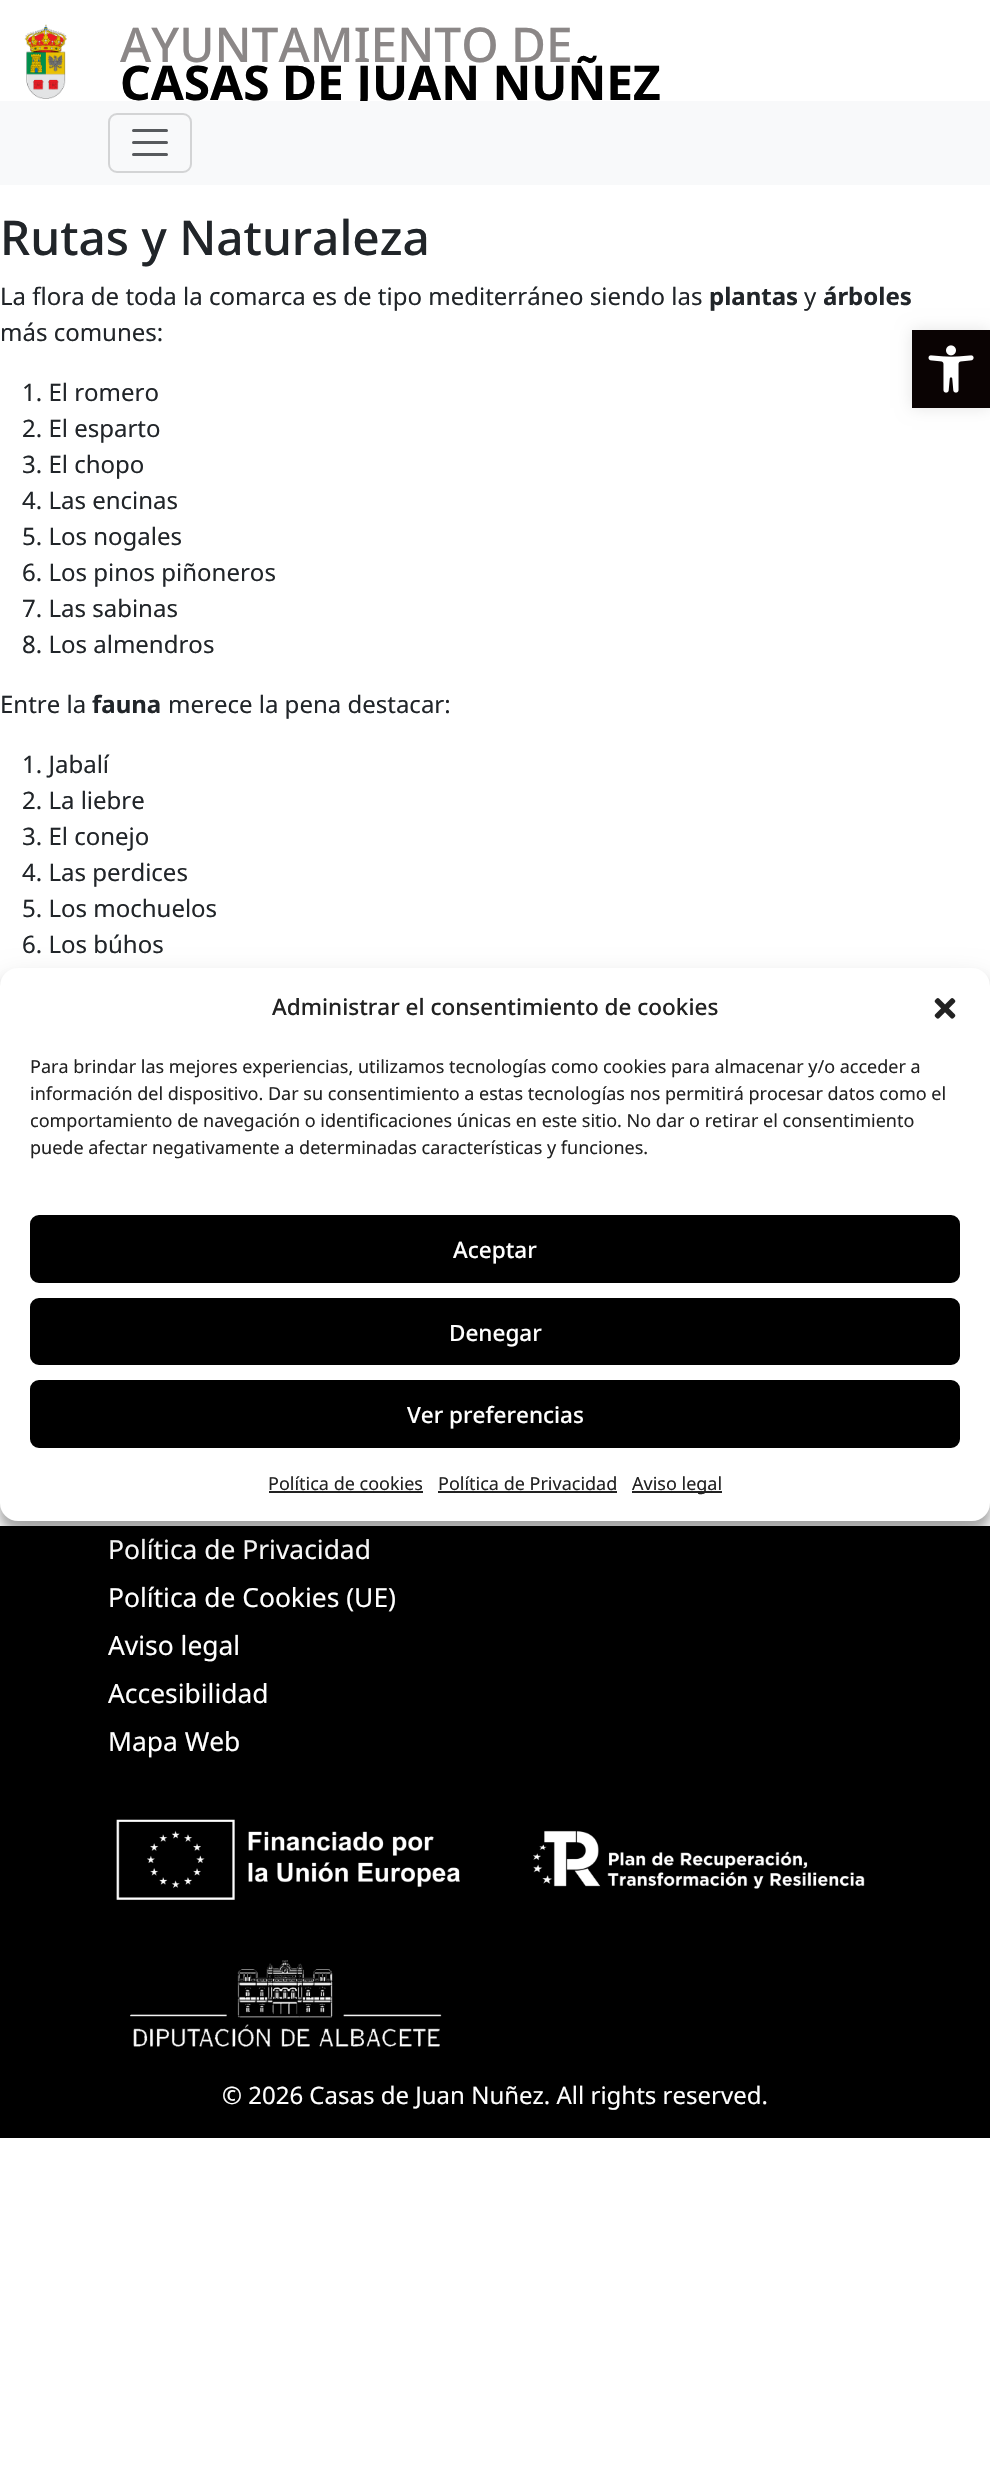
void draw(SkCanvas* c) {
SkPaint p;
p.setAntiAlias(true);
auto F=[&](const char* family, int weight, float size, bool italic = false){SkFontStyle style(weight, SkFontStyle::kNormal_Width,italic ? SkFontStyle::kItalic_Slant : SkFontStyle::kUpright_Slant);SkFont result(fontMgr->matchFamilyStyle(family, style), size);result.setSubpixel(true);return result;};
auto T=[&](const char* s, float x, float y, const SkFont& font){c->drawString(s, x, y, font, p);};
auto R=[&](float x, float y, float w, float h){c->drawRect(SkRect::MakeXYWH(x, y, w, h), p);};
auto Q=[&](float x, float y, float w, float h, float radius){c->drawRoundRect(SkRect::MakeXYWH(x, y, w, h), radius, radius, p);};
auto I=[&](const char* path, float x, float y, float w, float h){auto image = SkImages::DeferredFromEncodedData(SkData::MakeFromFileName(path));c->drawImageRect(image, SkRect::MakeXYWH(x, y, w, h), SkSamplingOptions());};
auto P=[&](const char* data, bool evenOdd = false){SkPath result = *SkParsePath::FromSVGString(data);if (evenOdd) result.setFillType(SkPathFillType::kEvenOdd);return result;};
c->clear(0xffffffff);
I("1.png",24,24,43,75);
auto f1 = F("Noto Sans",500,47.8);
p.setColor(0xff8b8787);
T("AYUNTAMIENTO DE",120,62,f1);
auto f2 = F("Noto Sans",700,47.8);
p.setColor(0xff000000);
T("CASAS DE JUAN NUÑEZ",120,100,f2);
p.setColor(0xfff8f9fa);
R(0,101,990,84);
p.setStroke(true);
p.setStrokeWidth(2);
p.setColor(0xffd3d4d5);
c->drawRoundRect(SkRect::MakeXYWH(109,114,82,58),8,8,p);
p.setStrokeWidth(3);
p.setStrokeCap(SkPaint::kRound_Cap);
p.setColor(0xff575a5d);
c->drawPath(P("M133.5 130.5h33m-33 12h33m-33 12h33"),p);
p.setStroke(false);
p.setColor(0xff212529);
T("Rutas y Naturaleza",0,255,f1);
auto f3 = F("Noto Sans",400,24);
T("La flora de toda la comarca es de tipo mediterráneo siendo las",0,305,f3);
auto f4 = F("Noto Sans",700,24);
T("plantas",709,305,f4);
T("y",804,305,f3);
T("árboles",823,305,f4);
T("más comunes:",0,341,f3);
T("1. El romero",22,401,f3);
T("2. El esparto",22,437,f3);
T("3. El chopo",22,473,f3);
T("4. Las encinas",22,509,f3);
T("5. Los nogales",22,545,f3);
T("6. Los pinos piñoneros",22,581,f3);
T("7. Las sabinas",22,617,f3);
T("8. Los almendros",22,653,f3);
T("Entre la",0,713,f3);
T("fauna",92,713,f4);
T("merece la pena destacar:",168,713,f3);
T("1. Jabalí",22,773,f3);
T("2. La liebre",22,809,f3);
T("3. El conejo",22,845,f3);
T("4. Las perdices",22,881,f3);
T("5. Los mochuelos",22,917,f3);
T("6. Los búhos",22,953,f3);
p.setColor(0xff000000);
R(0,1526,990,612);
auto f5 = F("Noto Sans",400,26.4);
p.setColor(0xffffffff);
T("Política de Privacidad",108,1559,f5);
T("Política de Cookies (UE)",108,1607,f5);
T("Aviso legal",108,1655,f5);
T("Accesibilidad",108,1703,f5);
T("Mapa Web",108,1751,f5);
I("2.png",116,1819,344,81);
I("3.png",533,1830,332,59);
I("4.png",130,1960,312,87);
T("© 2026 Casas de Juan Nuñez. All rights reserved.",222,2104,f3);
p.setColor(0x1a000000);
p.setMaskFilter(SkMaskFilter::MakeBlur(kNormal_SkBlurStyle, 7.5));
c->drawRect(SkRect::MakeXYWH(912,330,78,78),p);
p.setMaskFilter(nullptr);
p.setColor(0xff0a0303);
R(912,330,78,78);
I("5.png",928,345,46,48);
p.setColor(0x3b000000);
p.setMaskFilter(SkMaskFilter::MakeBlur(kNormal_SkBlurStyle, 4.5));
c->drawRoundRect(SkRect::MakeXYWH(0,977,990,553),18,18,p);
p.setMaskFilter(nullptr);
p.setColor(0x30000000);
p.setMaskFilter(SkMaskFilter::MakeBlur(kNormal_SkBlurStyle, 15));
c->drawRoundRect(SkRect::MakeXYWH(0,983,990,553),18,18,p);
p.setMaskFilter(nullptr);
p.setColor(0xffffffff);
Q(0,968,990,553,18);
auto f6 = F("Noto Sans",500,22.5);
p.setColor(0xff222222);
T("Administrar el consentimiento de cookies",272,1015,f6);
I("6.png",934,998,22,21);
auto f7 = F("Noto Sans",400,18);
T("Para brindar las mejores experiencias, utilizamos tecnologías como cookies para almacenar y/o acceder a",30,1073,f7);
T("información del dispositivo. Dar su consentimiento a estas tecnologías nos permitirá procesar datos como el",30,1100,f7);
T("comportamiento de navegación o identificaciones únicas en este sitio. No dar o retirar el consentimiento",30,1127,f7);
T("puede afectar negativamente a determinadas características y funciones.",30,1154,f7);
p.setColor(0xff000000);
c->drawRoundRect(SkRect::MakeXYWH(31,1216,928,66),8,8,p);
p.setStroke(true);
p.setStrokeWidth(2);
p.setStrokeCap(SkPaint::kButt_Cap);
c->drawRoundRect(SkRect::MakeXYWH(31,1216,928,66),8,8,p);
p.setStroke(false);
p.setColor(0xffffffff);
T("Aceptar",453,1258,f6);
p.setColor(0xff000000);
c->drawRoundRect(SkRect::MakeXYWH(31,1299,928,65),8,8,p);
p.setStroke(true);
c->drawRoundRect(SkRect::MakeXYWH(31,1299,928,65),8,8,p);
p.setStroke(false);
p.setColor(0xffffffff);
T("Denegar",449,1341,f6);
p.setColor(0xff000000);
c->drawRoundRect(SkRect::MakeXYWH(31,1381,928,66),8,8,p);
p.setStroke(true);
c->drawRoundRect(SkRect::MakeXYWH(31,1381,928,66),8,8,p);
p.setStroke(false);
p.setColor(0xffffffff);
T("Ver preferencias",407,1423,f6);
p.setColor(0xff222222);
T("Política de cookies",268,1490,f7);
R(269,1491,154,2);
T("Política de Privacidad",438,1490,f7);
R(438,1491,179,2);
R(632,1491,90,2);
T("Aviso legal",632,1490,f7);
}
